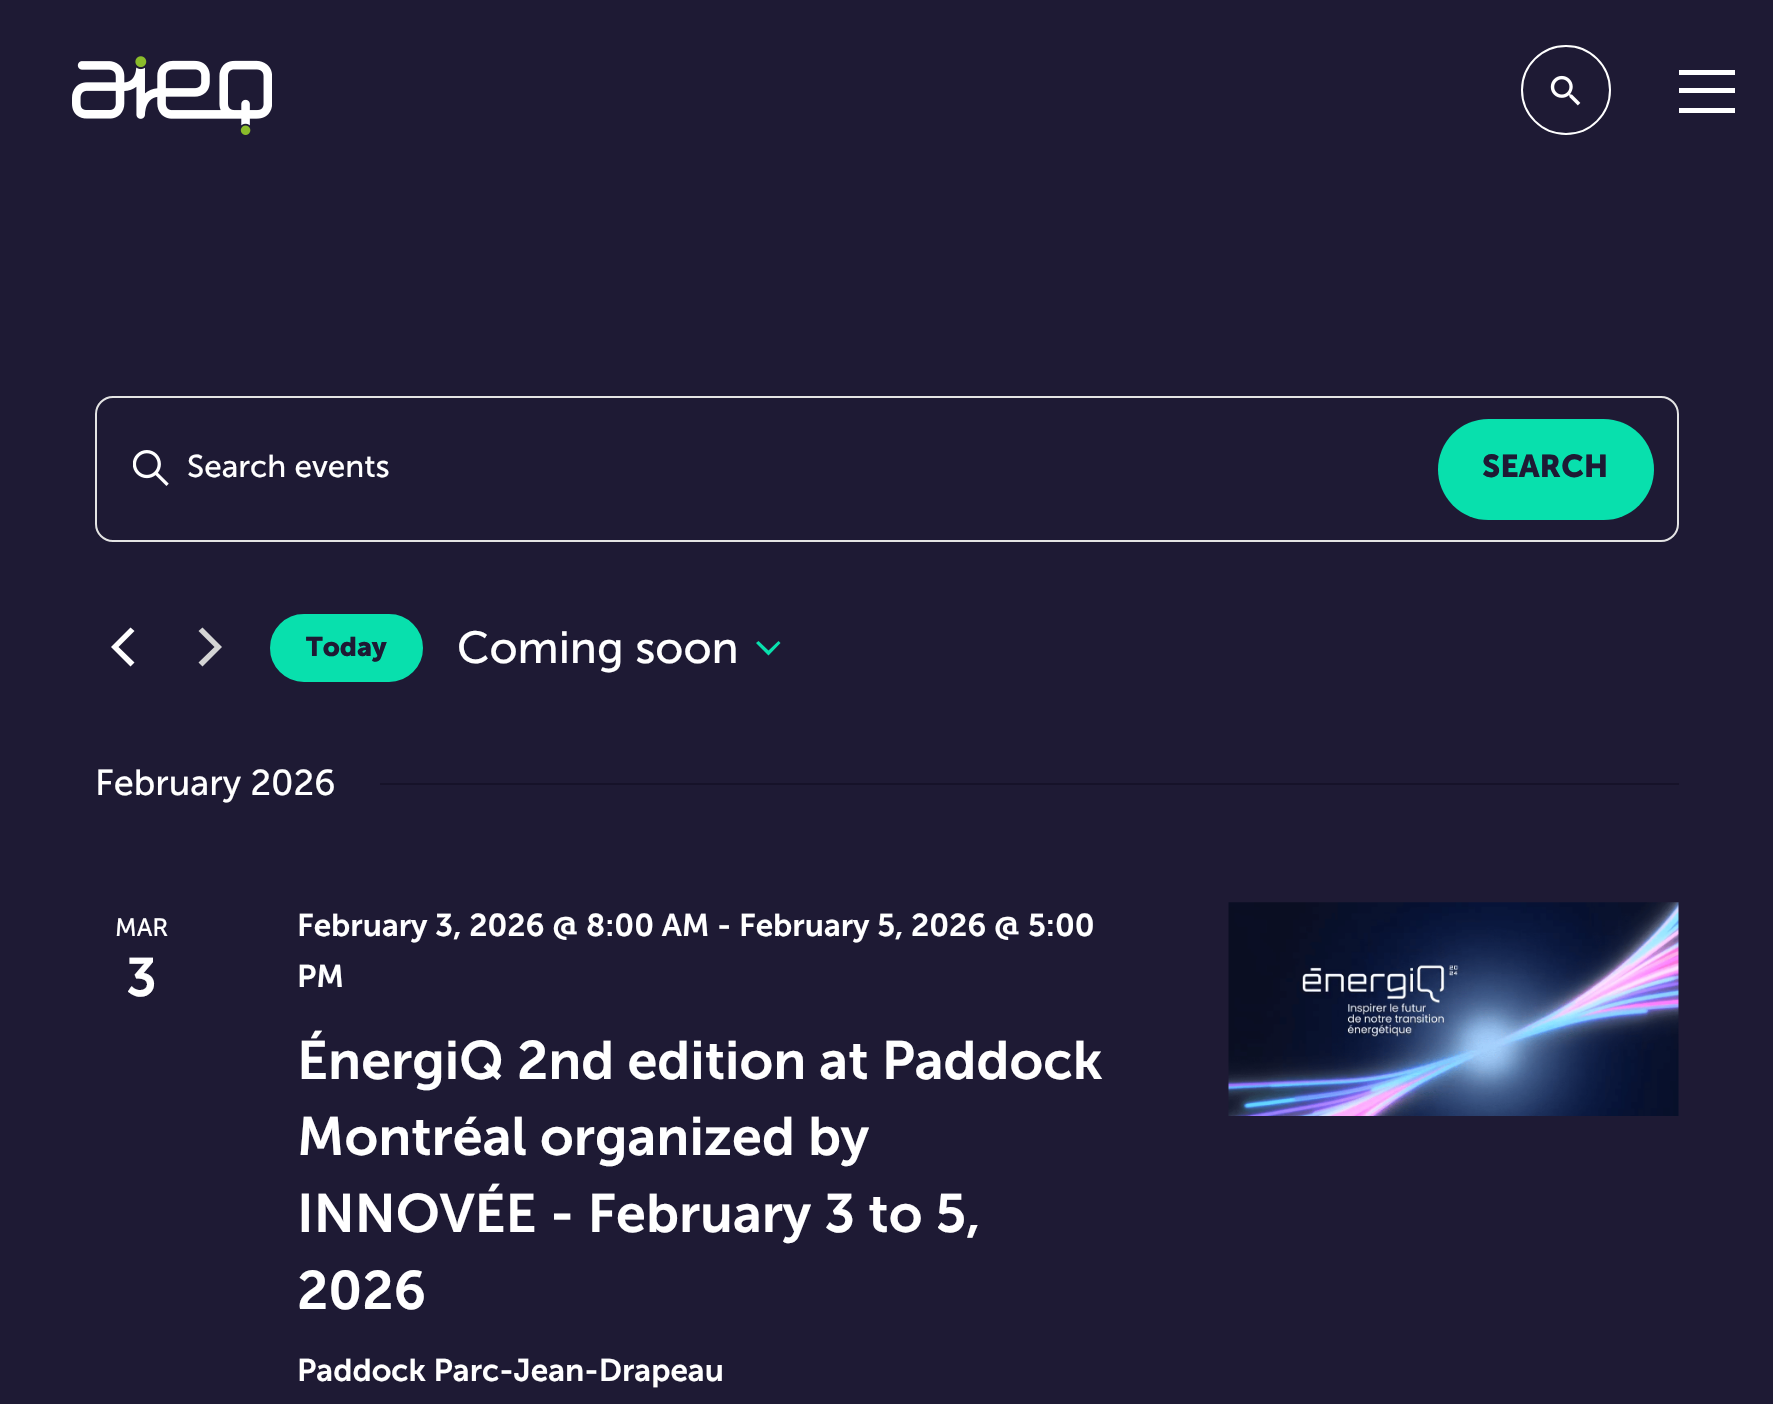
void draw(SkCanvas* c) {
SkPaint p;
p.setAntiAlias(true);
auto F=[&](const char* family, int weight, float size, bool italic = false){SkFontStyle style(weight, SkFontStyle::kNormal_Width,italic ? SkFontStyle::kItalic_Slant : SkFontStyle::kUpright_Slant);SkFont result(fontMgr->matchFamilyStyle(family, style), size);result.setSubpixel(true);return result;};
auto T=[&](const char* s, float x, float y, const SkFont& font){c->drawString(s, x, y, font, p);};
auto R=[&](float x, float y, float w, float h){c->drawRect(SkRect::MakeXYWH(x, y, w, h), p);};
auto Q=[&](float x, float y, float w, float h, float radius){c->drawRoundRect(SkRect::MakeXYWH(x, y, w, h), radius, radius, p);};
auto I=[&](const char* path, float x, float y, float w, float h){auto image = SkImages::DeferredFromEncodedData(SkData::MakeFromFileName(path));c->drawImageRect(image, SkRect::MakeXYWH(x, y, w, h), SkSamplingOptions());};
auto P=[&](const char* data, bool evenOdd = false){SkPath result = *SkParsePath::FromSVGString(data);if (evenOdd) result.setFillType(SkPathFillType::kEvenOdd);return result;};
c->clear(0xff1e1a34);
I("1.png",72,56,200,79);
p.setStroke(true);
p.setStrokeWidth(2);
p.setColor(0xffffffff);
c->drawCircle(1566,90,44,p);
I("2.png",1550,75,31,31);
p.setStroke(false);
R(1679,70,56,5);
R(1679,88,56,5);
R(1679,108,56,5);
p.setStroke(true);
p.setColor(0xffe4e4e4);
c->drawRoundRect(SkRect::MakeXYWH(96,397,1582,144),17,17,p);
I("3.png",133,450,36,36);
auto f1 = F("Museo Sans",400,31.5);
p.setStroke(false);
p.setColor(0xffffffff);
T("Search events",187,477,f1);
p.setColor(0xff08e0ad);
Q(1438,419,216,101,50.5);
auto f2 = F("Museo Sans",700,31.5);
p.setColor(0xff1e1a34);
T("SEARCH",1482,477,f2);
p.setColor(0xffffffff);
c->drawPath(P("M134.5 662.5l-4 4l-19.5-19.5l19.5-19.5l4 3.5l-16 16z"),p);
p.setColor(0xffd5d5d5);
c->drawPath(P("M198.5 631l4-3.5l19.5 19.5l-19.5 19.5l-4-4l16-15.5z"),p);
p.setColor(0xff08e0ad);
c->drawRoundRect(SkRect::MakeXYWH(271,615,151,66),33,33,p);
p.setStroke(true);
c->drawRoundRect(SkRect::MakeXYWH(271,615,151,66),33,33,p);
auto f3 = F("Museo Sans",700,27);
p.setStroke(false);
p.setColor(0xff1e1a34);
T("Today",306,656,f3);
auto f4 = F("Museo Sans",400,45);
p.setColor(0xffffffff);
T("Coming soon",457,663,f4);
p.setColor(0xff08e0ad);
c->drawPath(P("M758.5 641l10 9.5l10-9.5l2 2l-12 12.5l-12.5-12.5z",true),p);
auto f5 = F("Museo Sans",400,36);
p.setColor(0xffffffff);
T("February 2026",95,795,f5);
p.setColor(0xff161229);
R(380,783,1299,2);
auto f6 = F("Museo Sans",400,25);
p.setColor(0xffffffff);
T("MAR",115,936,f6);
auto f7 = F("Museo Sans",600,54);
T("3",126,996,f7);
auto f8 = F("Museo Sans",600,31.5);
T("February 3, 2026 @ 8:00 AM - February 5, 2026 @ 5:00",297,936,f8);
T("PM",297,987,f8);
T("ÉnergiQ 2nd edition at Paddock",297,1079,f7);
T("Montréal organized by",297,1155,f7);
T("INNOVÉE - February 3 to 5,",297,1232,f7);
T("2026",297,1309,f7);
T("Paddock Parc-Jean-Drapeau",297,1381,f8);
I("4.png",1228,902,451,214);
}
